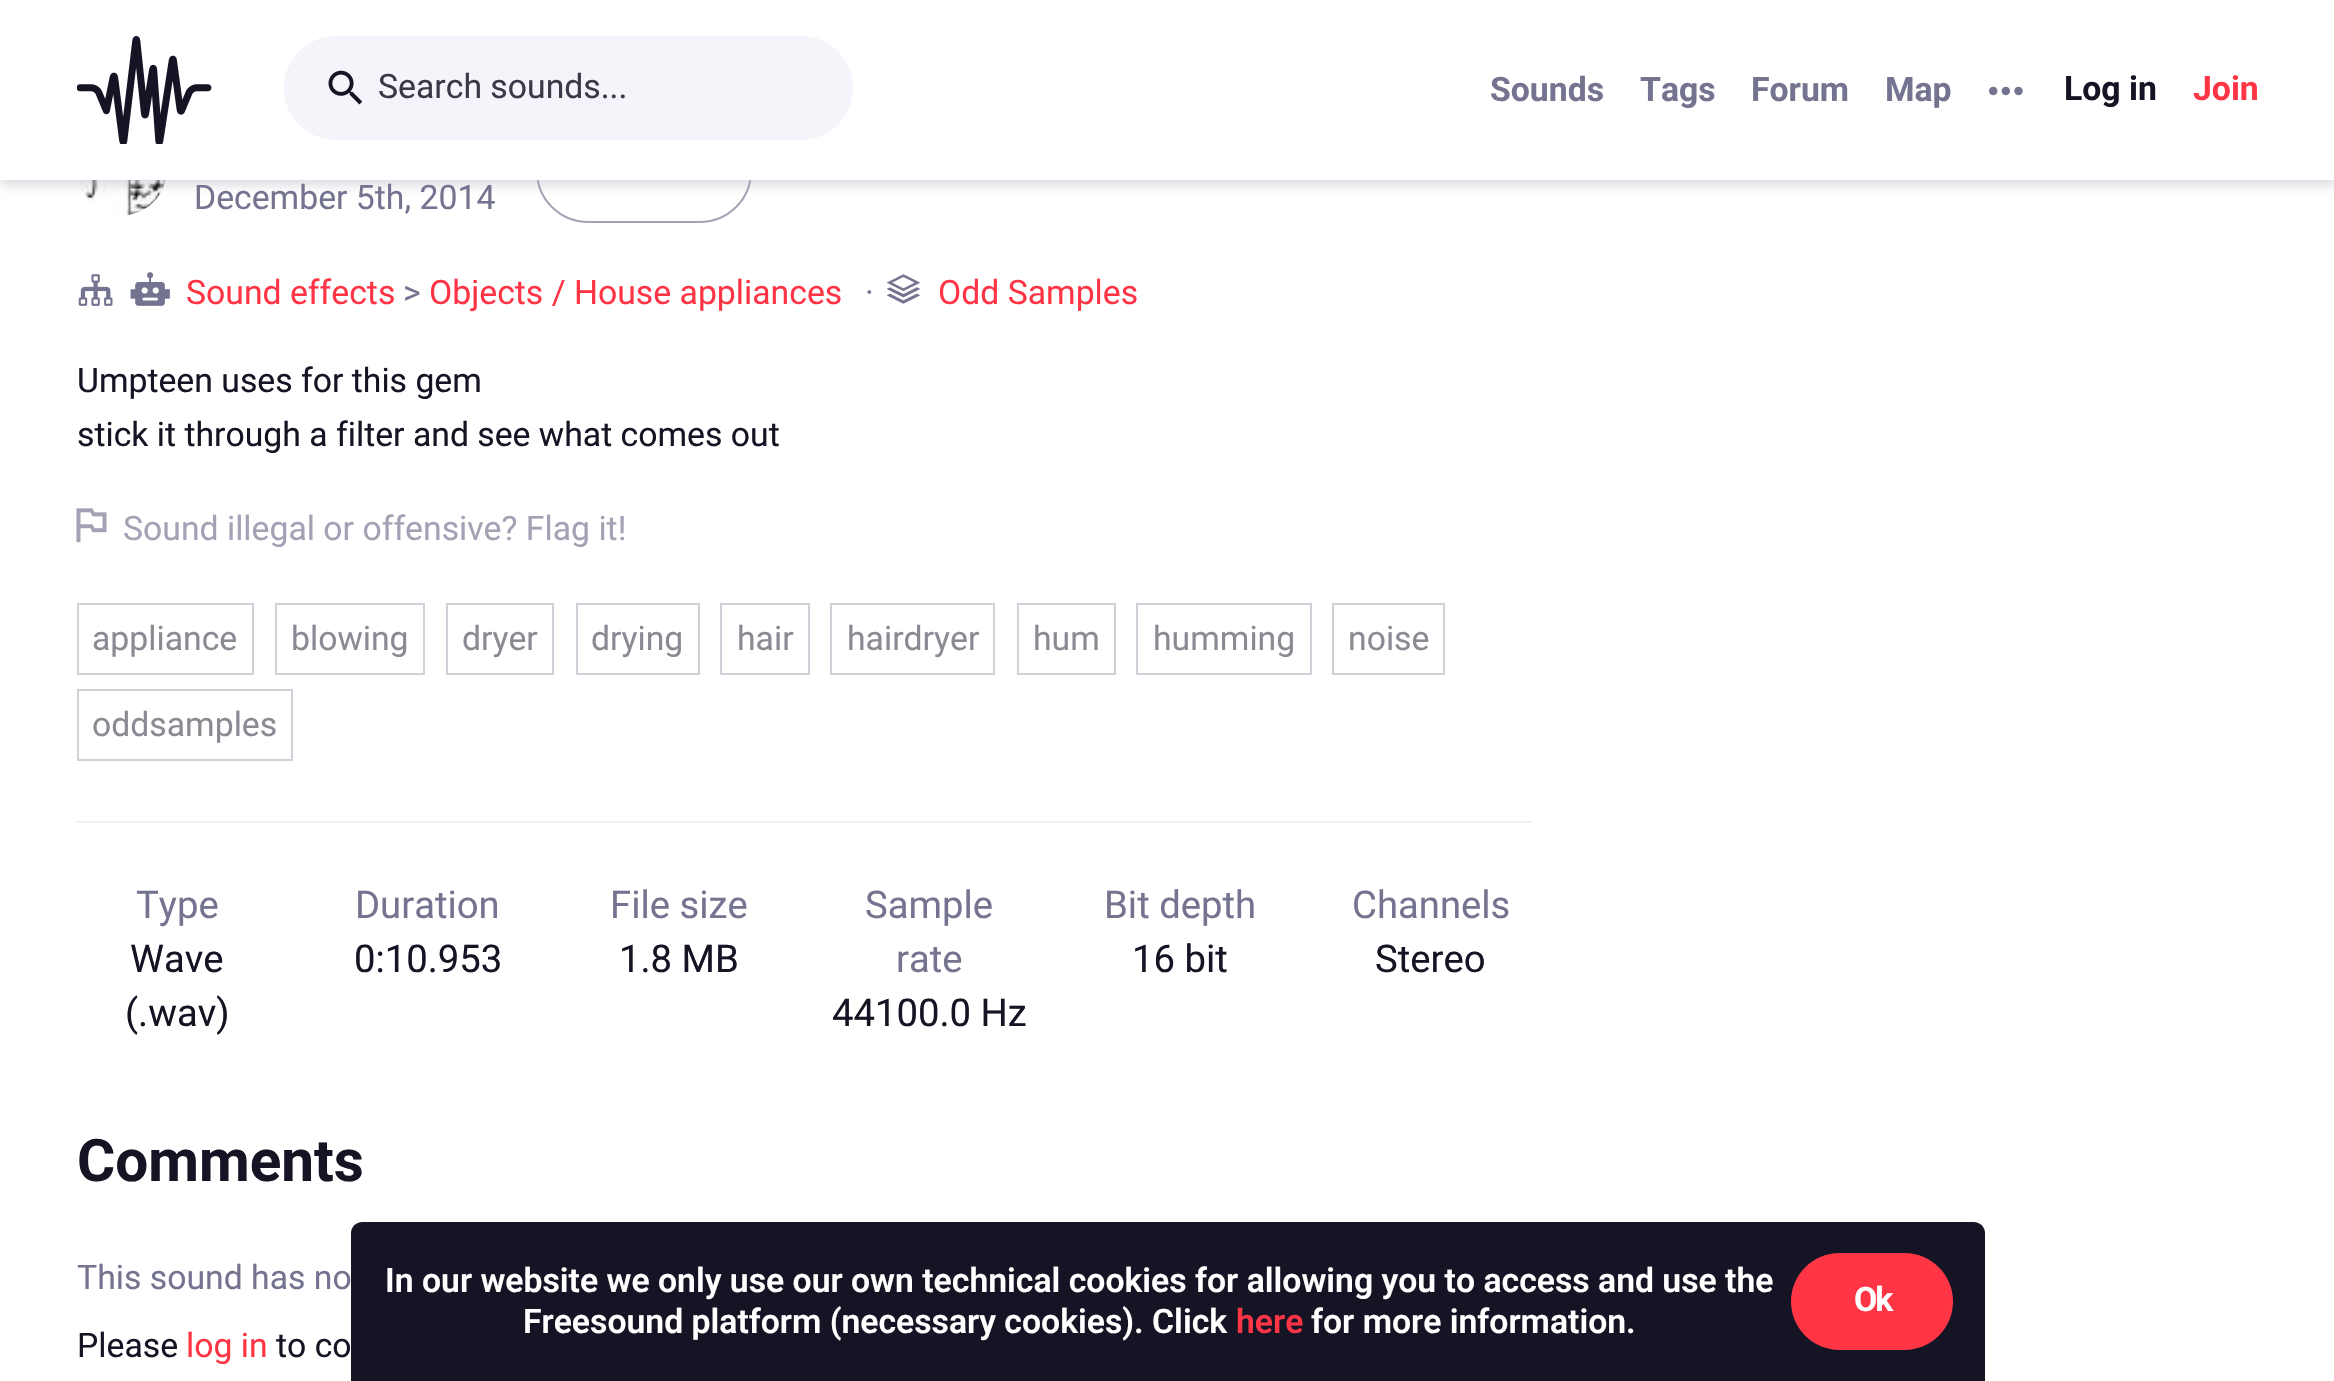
void draw(SkCanvas* c) {
SkPaint p;
p.setAntiAlias(true);
auto F=[&](const char* family, int weight, float size, bool italic = false){SkFontStyle style(weight, SkFontStyle::kNormal_Width,italic ? SkFontStyle::kItalic_Slant : SkFontStyle::kUpright_Slant);SkFont result(fontMgr->matchFamilyStyle(family, style), size);result.setSubpixel(true);return result;};
auto T=[&](const char* s, float x, float y, const SkFont& font){c->drawString(s, x, y, font, p);};
auto L=[&](const char* s, float x, float y, const SkFont& font, const SkPaint& ink, float letter, float word){std::vector<SkGlyphID> glyphs(font.countText(s, strlen(s), SkTextEncoding::kUTF8));std::vector<float> xs(glyphs.size());font.textToGlyphs(s, strlen(s), SkTextEncoding::kUTF8, glyphs);font.getXPos(glyphs, xs, x);float extra = 0;for (size_t i = 0; i < glyphs.size(); i++) {xs[i] += extra;extra += letter + word * (glyphs[i] == font.unicharToGlyph(' '));}c->drawTextBlob(SkTextBlob::MakeFromPosHGlyphs(glyphs, xs, y, font), 0, 0, ink);};
auto R=[&](float x, float y, float w, float h){c->drawRect(SkRect::MakeXYWH(x, y, w, h), p);};
auto Q=[&](float x, float y, float w, float h, float radius){c->drawRoundRect(SkRect::MakeXYWH(x, y, w, h), radius, radius, p);};
auto I=[&](const char* path, float x, float y, float w, float h){auto image = SkImages::DeferredFromEncodedData(SkData::MakeFromFileName(path));c->drawImageRect(image, SkRect::MakeXYWH(x, y, w, h), SkSamplingOptions());};
auto P=[&](const char* data, bool evenOdd = false){SkPath result = *SkParsePath::FromSVGString(data);if (evenOdd) result.setFillType(SkPathFillType::kEvenOdd);return result;};
c->clear(0xffffffff);
I("4.png",77,180,89,35);
p.setStroke(true);
p.setStrokeWidth(2);
p.setColor(0xffa2a2b4);
c->drawRoundRect(SkRect::MakeXYWH(537,120,214,102),51,51,p);
p.setStroke(false);
p.setColor(0x66a2a2b4);
p.setMaskFilter(SkMaskFilter::MakeBlur(kNormal_SkBlurStyle, 5.5));
c->drawRect(SkRect::MakeXYWH(0,5,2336,180),p);
p.setMaskFilter(nullptr);
p.setColor(0xffffffff);
R(0,0,2334,180);
I("1.png",77,36,135,108);
p.setColor(0xfff4f4fa);
Q(284,36,569,104,52);
I("2.png",328,70,35,35);
auto f1 = F("Roboto",400,33.75);
p.setColor(0xff393947);
T("Search sounds...",378,98,f1);
auto f2 = F("Roboto",700,33.75);
p.setColor(0xff747490);
T("Sounds",1490,101,f2);
T("Tags",1640,101,f2);
T("Forum",1751,101,f2);
T("Map",1885,101,f2);
I("3.png",1989,86,34,10);
p.setColor(0xff141424);
T("Log in",2064,100,f2);
p.setColor(0xffff3546);
T("Join",2193,100,f2);
p.setColor(0xff747490);
T("December 5th, 2014",194,209,f1);
I("5.png",78,274,35,32);
I("6.png",130,272,40,34);
p.setColor(0xffff3546);
T("Sound effects",186,304,f1);
p.setColor(0xff747490);
T(">",403,304,f1);
p.setColor(0xffff3546);
T("Objects / House appliances",429,304,f1);
p.setColor(0xff747490);
T("·",865,304,f1);
I("7.png",887,274,34,30);
p.setColor(0xffff3546);
T("Odd Samples",938,304,f1);
p.setColor(0xff141424);
T("Umpteen uses for this gem",77,392,f1);
T("stick it through a filter and see what comes out",77,446,f1);
I("8.png",76,508,31,35);
p.setColor(0xffa2a2b4);
T("Sound illegal or offensive? Flag it!",123,540,f1);
p.setStroke(true);
p.setColor(0xffd1d1da);
c->drawRect(SkRect::MakeXYWH(78,604,175,70),p);
p.setStroke(false);
p.setColor(0xff8a8a92);
T("appliance",92,650,f1);
p.setStroke(true);
p.setColor(0xffd1d1da);
c->drawRect(SkRect::MakeXYWH(276,604,148,70),p);
p.setStroke(false);
p.setColor(0xff8a8a92);
T("blowing",291,650,f1);
p.setStroke(true);
p.setColor(0xffd1d1da);
c->drawRect(SkRect::MakeXYWH(447,604,106,70),p);
p.setStroke(false);
p.setColor(0xff8a8a92);
T("dryer",462,650,f1);
p.setStroke(true);
p.setColor(0xffd1d1da);
c->drawRect(SkRect::MakeXYWH(577,604,122,70),p);
p.setStroke(false);
p.setColor(0xff8a8a92);
T("drying",591,650,f1);
p.setStroke(true);
p.setColor(0xffd1d1da);
c->drawRect(SkRect::MakeXYWH(721,604,88,70),p);
p.setStroke(false);
p.setColor(0xff8a8a92);
T("hair",737,650,f1);
p.setStroke(true);
p.setColor(0xffd1d1da);
c->drawRect(SkRect::MakeXYWH(831,604,163,70),p);
p.setStroke(false);
p.setColor(0xff8a8a92);
T("hairdryer",847,650,f1);
p.setStroke(true);
p.setColor(0xffd1d1da);
c->drawRect(SkRect::MakeXYWH(1018,604,97,70),p);
p.setStroke(false);
p.setColor(0xff8a8a92);
T("hum",1033,650,f1);
p.setStroke(true);
p.setColor(0xffd1d1da);
c->drawRect(SkRect::MakeXYWH(1137,604,174,70),p);
p.setStroke(false);
p.setColor(0xff8a8a92);
T("humming",1153,650,f1);
p.setStroke(true);
p.setColor(0xffd1d1da);
c->drawRect(SkRect::MakeXYWH(1333,604,111,70),p);
p.setStroke(false);
p.setColor(0xff8a8a92);
T("noise",1348,650,f1);
p.setStroke(true);
p.setColor(0xffd1d1da);
c->drawRect(SkRect::MakeXYWH(78,690,214,70),p);
p.setStroke(false);
p.setColor(0xff8a8a92);
T("oddsamples",92,736,f1);
p.setColor(0xfff1f1f4);
R(77,821,1455,2);
auto f3 = F("Roboto",400,38.25);
p.setColor(0xff747490);
T("Type",136,918,f3);
p.setColor(0xff141424);
T("Wave",130,972,f3);
T("(.wav)",125,1026,f3);
p.setColor(0xff747490);
T("Duration",355,918,f3);
p.setColor(0xff141424);
T("0:10.953",354,972,f3);
p.setColor(0xff747490);
T("File size",610,918,f3);
p.setColor(0xff141424);
T("1.8 MB",619,972,f3);
p.setColor(0xff747490);
T("Sample",865,918,f3);
T("rate",896,972,f3);
p.setColor(0xff141424);
T("44100.0 Hz",832,1026,f3);
p.setColor(0xff747490);
T("Bit depth",1104,918,f3);
p.setColor(0xff141424);
T("16 bit",1132,972,f3);
p.setColor(0xff747490);
T("Channels",1352,918,f3);
p.setColor(0xff141424);
T("Stereo",1375,972,f3);
auto f4 = F("Roboto",700,58.5);
T("Comments",77,1181,f4);
p.setColor(0xff747490);
T("This sound has no",77,1289,f1);
p.setColor(0xff141424);
T("Please",77,1357,f1);
p.setColor(0xffff3546);
T("log in",186,1357,f1);
p.setColor(0xff141424);
T("to co",276,1357,f1);
c->drawPath(P("M362 1222h1612c6 0 11 5 11 11v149h-1634v-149c0-6 5-11 11-11z"),p);
auto f5 = F("Roboto",600,33.75);
p.setColor(0xffffffff);
T("In our website we only use our own technical cookies for allowing you to access and use the",385,1292,f5);
T("Freesound platform (necessary cookies). Click",523,1333,f5);
p.setColor(0xffff3546);
T("here",1236,1333,f5);
p.setColor(0xffffffff);
T("for more information.",1311,1333,f5);
p.setColor(0xffff3546);
Q(1791,1253,162,97,48.5);
p.setColor(0xffffffff);
L("Ok",1854,1311,f2,p,-2,0);
}
